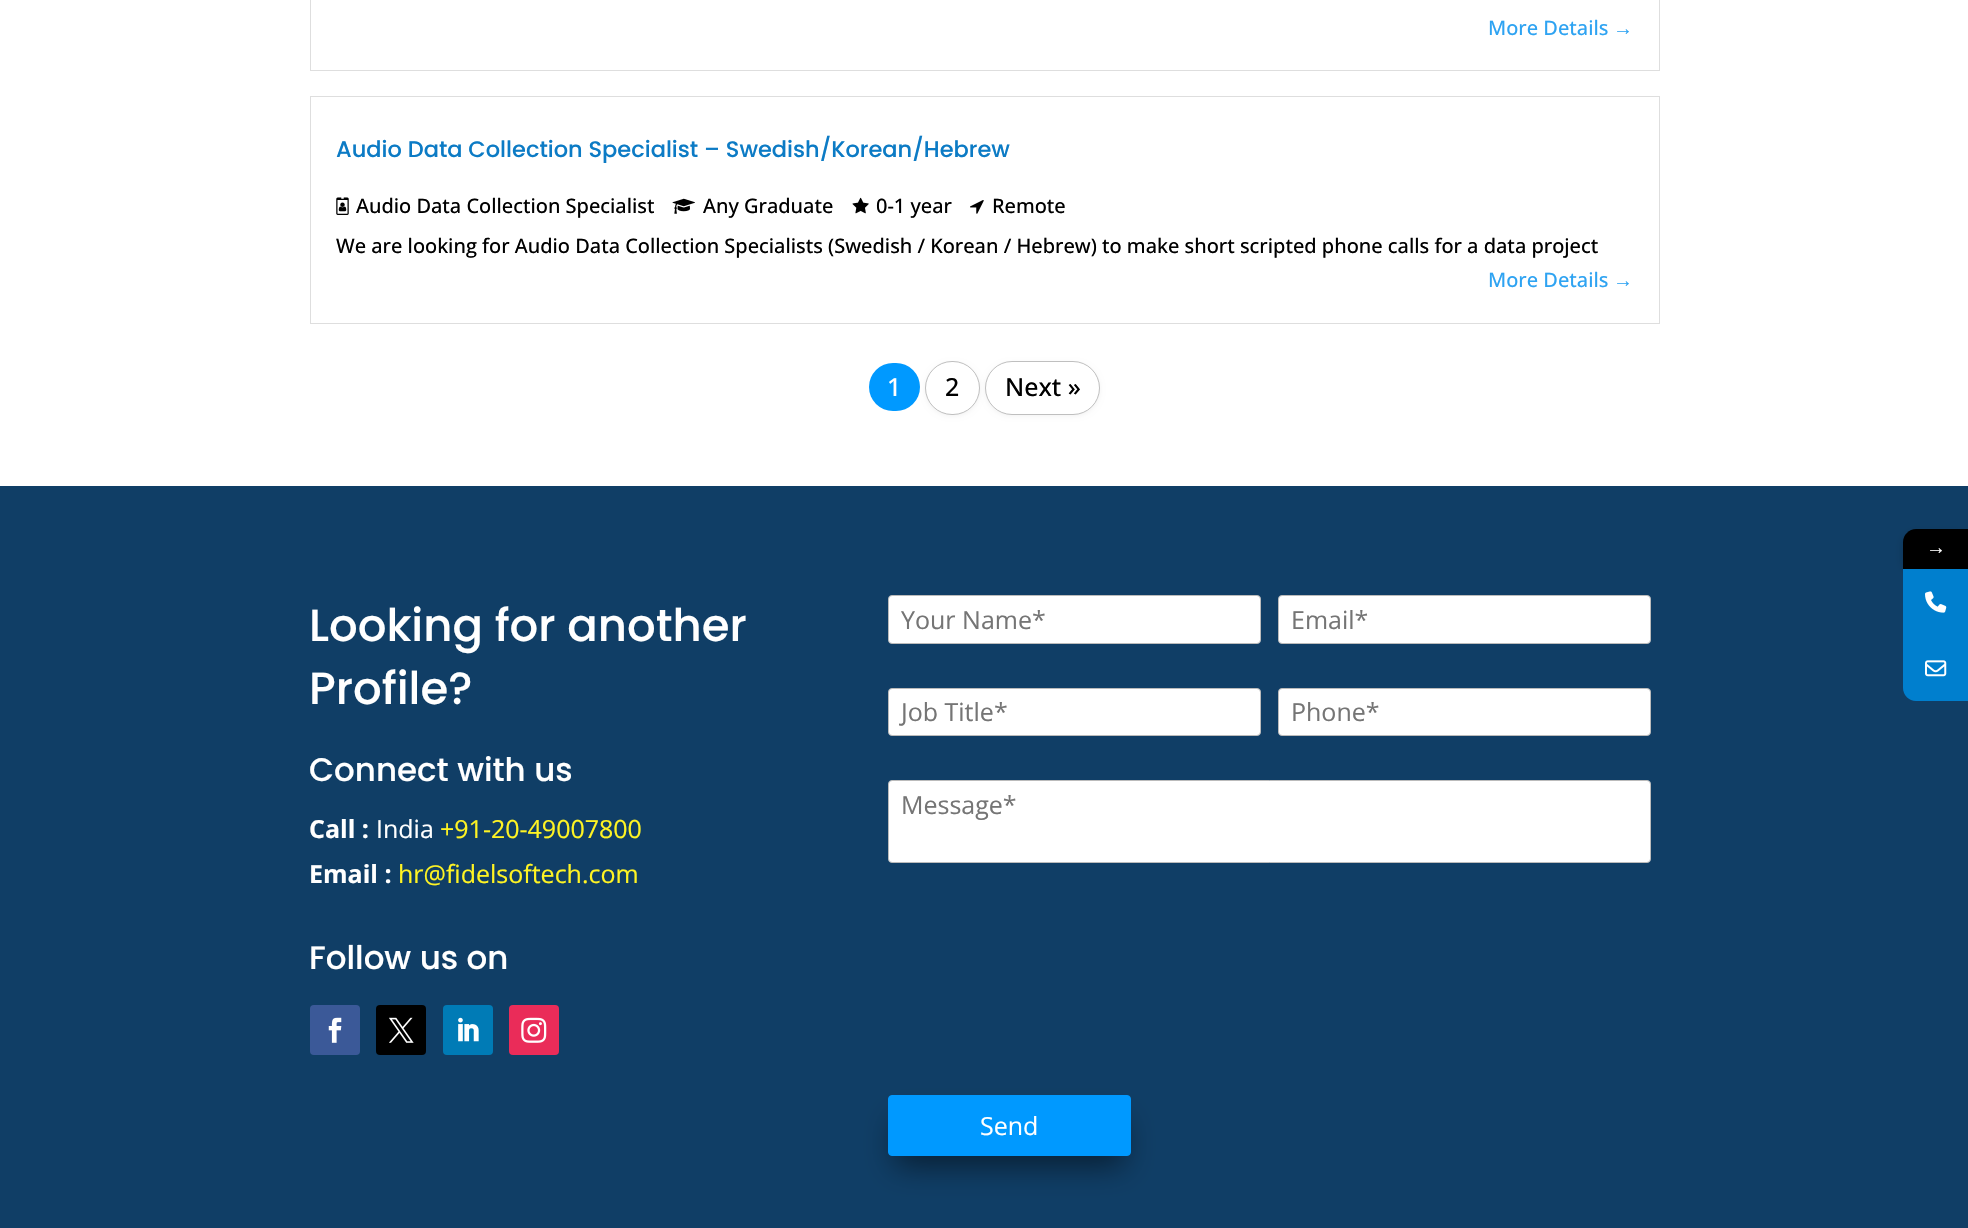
void draw(SkCanvas* c) {
SkPaint p;
p.setAntiAlias(true);
auto F=[&](const char* family, int weight, float size, bool italic = false){SkFontStyle style(weight, SkFontStyle::kNormal_Width,italic ? SkFontStyle::kItalic_Slant : SkFontStyle::kUpright_Slant);SkFont result(fontMgr->matchFamilyStyle(family, style), size);result.setSubpixel(true);return result;};
auto T=[&](const char* s, float x, float y, const SkFont& font){c->drawString(s, x, y, font, p);};
auto R=[&](float x, float y, float w, float h){c->drawRect(SkRect::MakeXYWH(x, y, w, h), p);};
auto Q=[&](float x, float y, float w, float h, float radius){c->drawRoundRect(SkRect::MakeXYWH(x, y, w, h), radius, radius, p);};
auto I=[&](const char* path, float x, float y, float w, float h){auto image = SkImages::DeferredFromEncodedData(SkData::MakeFromFileName(path));c->drawImageRect(image, SkRect::MakeXYWH(x, y, w, h), SkSamplingOptions());};
auto P=[&](const char* data, bool evenOdd = false){SkPath result = *SkParsePath::FromSVGString(data);if (evenOdd) result.setFillType(SkPathFillType::kEvenOdd);return result;};
c->clear(0xffffffff);
p.setStroke(true);
p.setStrokeWidth(1);
p.setColor(0xffdedede);
c->drawRect(SkRect::MakeXYWH(310.5,-.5,1349,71),p);
auto f1 = F("Open Sans",500,20);
p.setStroke(false);
p.setColor(0xff2ea3f2);
T("More Details",1488,35,f1);
auto f2 = F("Liberation Sans",400,20);
T("→",1613,35,f2);
p.setStroke(true);
p.setColor(0xffdedede);
c->drawRect(SkRect::MakeXYWH(310.5,96.5,1349,227),p);
auto f3 = F("Poppins",500,22.5);
p.setStroke(false);
p.setColor(0xff0c7bc5);
T("Audio Data Collection Specialist – Swedish/Korean/Hebrew",336,157,f3);
I("1.png",336,197,13,18);
p.setColor(0xff000000);
T("Audio Data Collection Specialist",356,213,f1);
I("2.png",672,198,23,16);
T("Any Graduate",703,213,f1);
I("3.png",852,197,17,17);
T("0-1 year",876,213,f1);
I("4.png",970,200,14,14);
T("Remote",992,213,f1);
T("We are looking for Audio Data Collection Specialists (Swedish / Korean / Hebrew) to make short scripted phone calls for a data project",336,253,f1);
p.setColor(0xff2ea3f2);
T("More Details",1488,287,f1);
T("→",1613,287,f2);
p.setColor(0xff0099ff);
Q(869,363,51,48,24);
auto f4 = F("Open Sans",500,25);
p.setColor(0xffffffff);
T("1",887,396,f4);
p.setColor(0x0d000000);
p.setMaskFilter(SkMaskFilter::MakeBlur(kNormal_SkBlurStyle, 2.5));
c->drawRoundRect(SkRect::MakeXYWH(925,363,55,53),26.5,26.5,p);
p.setMaskFilter(nullptr);
p.setColor(0xffffffff);
c->drawRoundRect(SkRect::MakeXYWH(925.5,361.5,54,53),26.5,26.5,p);
p.setStroke(true);
p.setColor(0xffbfbfbf);
c->drawRoundRect(SkRect::MakeXYWH(925.5,361.5,54,53),26.5,26.5,p);
p.setStroke(false);
p.setColor(0xff000000);
T("2",945,396,f4);
p.setColor(0x0d000000);
p.setMaskFilter(SkMaskFilter::MakeBlur(kNormal_SkBlurStyle, 2.5));
c->drawRoundRect(SkRect::MakeXYWH(985,363,115,53),26.5,26.5,p);
p.setMaskFilter(nullptr);
p.setColor(0xffffffff);
c->drawRoundRect(SkRect::MakeXYWH(985.5,361.5,114,53),26.5,26.5,p);
p.setStroke(true);
p.setColor(0xffbfbfbf);
c->drawRoundRect(SkRect::MakeXYWH(985.5,361.5,114,53),26.5,26.5,p);
p.setStroke(false);
p.setColor(0xff000000);
T("Next »",1005,396,f4);
p.setColor(0xff103e66);
R(0,486,1968,742);
auto f5 = F("Poppins",500,45);
p.setColor(0xffffffff);
T("Looking for another",309,641,f5);
T("Profile?",309,704,f5);
auto f6 = F("Poppins",500,32.5);
T("Connect with us",309,781,f6);
auto f7 = F("Open Sans",700,25);
T("Call :",309,838,f7);
auto f8 = F("Open Sans",400,25);
T("India",376,838,f8);
p.setColor(0xfffff423);
T("+91-20-49007800",440,838,f8);
p.setColor(0xffffffff);
T("Email :",309,883,f7);
p.setColor(0xfffff423);
T("hr@fidelsoftech.com",398,883,f8);
p.setColor(0xffffffff);
T("Follow us on",309,969,f6);
p.setColor(0xff3b5998);
Q(310,1005,50,50,4);
I("5.png",328,1017,14,26);
p.setColor(0xff000000);
Q(376,1005,50,50,4);
I("6.png",389,1017,25,26);
p.setColor(0xff007bb6);
Q(443,1005,50,50,4);
I("7.png",458,1017,21,25);
p.setColor(0xffea2c59);
Q(509,1005,50,50,4);
I("8.png",521,1017,26,26);
p.setColor(0xffffffff);
c->drawRoundRect(SkRect::MakeXYWH(888.5,595.5,372,48),3.5,3.5,p);
p.setStroke(true);
p.setColor(0xffbbbbbb);
c->drawRoundRect(SkRect::MakeXYWH(888.5,595.5,372,48),3.5,3.5,p);
p.setStroke(false);
p.setColor(0xff757575);
T("Your Name*",901,629,f8);
p.setColor(0xffffffff);
c->drawRoundRect(SkRect::MakeXYWH(1278.5,595.5,372,48),3.5,3.5,p);
p.setStroke(true);
p.setColor(0xffbbbbbb);
c->drawRoundRect(SkRect::MakeXYWH(1278.5,595.5,372,48),3.5,3.5,p);
p.setStroke(false);
p.setColor(0xff757575);
T("Email*",1291,629,f8);
p.setColor(0xffffffff);
c->drawRoundRect(SkRect::MakeXYWH(888.5,688.5,372,47),3.5,3.5,p);
p.setStroke(true);
p.setColor(0xffbbbbbb);
c->drawRoundRect(SkRect::MakeXYWH(888.5,688.5,372,47),3.5,3.5,p);
p.setStroke(false);
p.setColor(0xff757575);
T("Job Title*",901,721,f8);
p.setColor(0xffffffff);
c->drawRoundRect(SkRect::MakeXYWH(1278.5,688.5,372,47),3.5,3.5,p);
p.setStroke(true);
p.setColor(0xffbbbbbb);
c->drawRoundRect(SkRect::MakeXYWH(1278.5,688.5,372,47),3.5,3.5,p);
p.setStroke(false);
p.setColor(0xff757575);
T("Phone*",1291,721,f8);
p.setColor(0xffffffff);
c->drawRoundRect(SkRect::MakeXYWH(888.5,780.5,762,82),3.5,3.5,p);
p.setStroke(true);
p.setColor(0xffbbbbbb);
c->drawRoundRect(SkRect::MakeXYWH(888.5,780.5,762,82),3.5,3.5,p);
p.setStroke(false);
p.setColor(0xff757575);
T("Message*",901,814,f8);
p.setColor(0x80000000);
p.setMaskFilter(SkMaskFilter::MakeBlur(kNormal_SkBlurStyle, 15.5));
c->drawRect(SkRect::MakeXYWH(895,1120,229,46),p);
p.setMaskFilter(nullptr);
p.setColor(0xff0099ff);
c->drawRoundRect(SkRect::MakeXYWH(888.5,1095.5,242,60),3.5,3.5,p);
p.setStroke(true);
c->drawRoundRect(SkRect::MakeXYWH(888.5,1095.5,242,60),3.5,3.5,p);
p.setStroke(false);
p.setColor(0xffffffff);
T("Send",980,1135,f8);
p.setColor(0x29000000);
p.setMaskFilter(SkMaskFilter::MakeBlur(kNormal_SkBlurStyle, 4));
c->drawRoundRect(SkRect::MakeXYWH(1903,533,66,40),13,13,p);
p.setMaskFilter(nullptr);
p.setColor(0xff000000);
c->drawPath(P("M1916 529h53v40h-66v-27c0-7 6-13 13-13z"),p);
auto f9 = F("Liberation Serif",400,20);
p.setColor(0xffffffff);
T("→",1926,554,f9);
p.setColor(0xff007fce);
R(1903,569,65,66);
I("9.png",1925,591,22,22);
c->drawPath(P("M1903 635h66v66h-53c-7 0-13-6-13-13z"),p);
I("10.png",1925,660,22,17);
}
